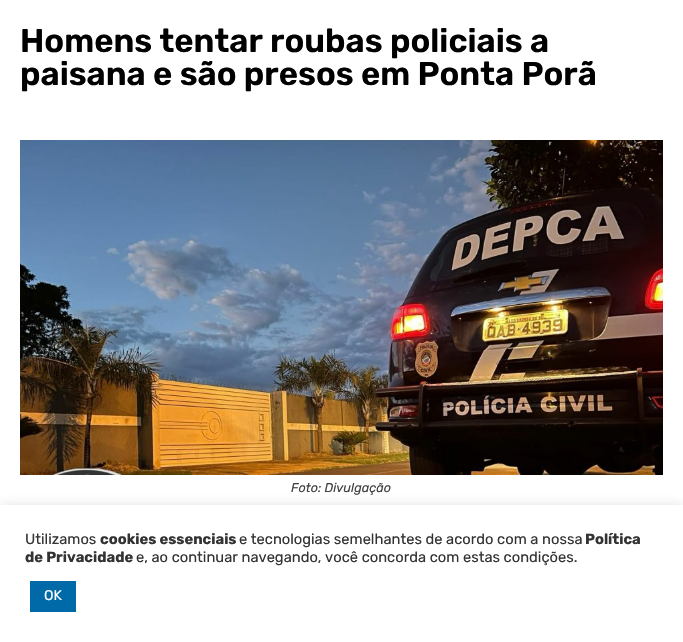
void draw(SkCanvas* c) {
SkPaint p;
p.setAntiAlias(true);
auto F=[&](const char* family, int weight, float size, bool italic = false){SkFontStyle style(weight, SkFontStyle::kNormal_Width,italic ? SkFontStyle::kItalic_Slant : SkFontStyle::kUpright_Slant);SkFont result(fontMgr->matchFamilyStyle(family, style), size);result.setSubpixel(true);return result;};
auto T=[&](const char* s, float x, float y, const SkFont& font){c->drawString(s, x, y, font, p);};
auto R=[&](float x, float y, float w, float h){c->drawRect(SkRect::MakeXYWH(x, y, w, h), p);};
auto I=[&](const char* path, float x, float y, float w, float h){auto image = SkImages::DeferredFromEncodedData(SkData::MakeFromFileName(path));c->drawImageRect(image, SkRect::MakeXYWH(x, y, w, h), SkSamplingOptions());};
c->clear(0xffffffff);
auto f1 = F("Rubik",600,33);
p.setColor(0xff000000);
T("Homens tentar roubas policiais a",20,52,f1);
T("paisana e são presos em Ponta Porã",20,85,f1);
I("1.png",20,140,643,335);
auto f2 = F("Rubik",400,12.75,true);
p.setColor(0xff404040);
T("Foto: Divulgação",291,492,f2);
p.setColor(0x4dacabab);
p.setMaskFilter(SkMaskFilter::MakeBlur(kNormal_SkBlurStyle, 5));
c->drawRect(SkRect::MakeXYWH(0,504,683,137),p);
p.setMaskFilter(nullptr);
p.setColor(0xffffffff);
R(0,505,683,137);
auto f3 = F("Rubik",400,14.7);
p.setColor(0xff333333);
T("Utilizamos",25,544,f3);
auto f4 = F("Rubik",700,14.7);
T("cookies essenciais",100,544,f4);
T("e tecnologias semelhantes de acordo com a nossa",239,544,f3);
T("Política",585,544,f4);
T("de Privacidade",25,562,f4);
T("e, ao continuar navegando, você concorda com estas condições.",136,562,f3);
p.setColor(0xff006aa8);
R(30,581,46,31);
auto f5 = F("Rubik",400,14);
p.setColor(0xffffffff);
T("OK",44,600,f5);
}
